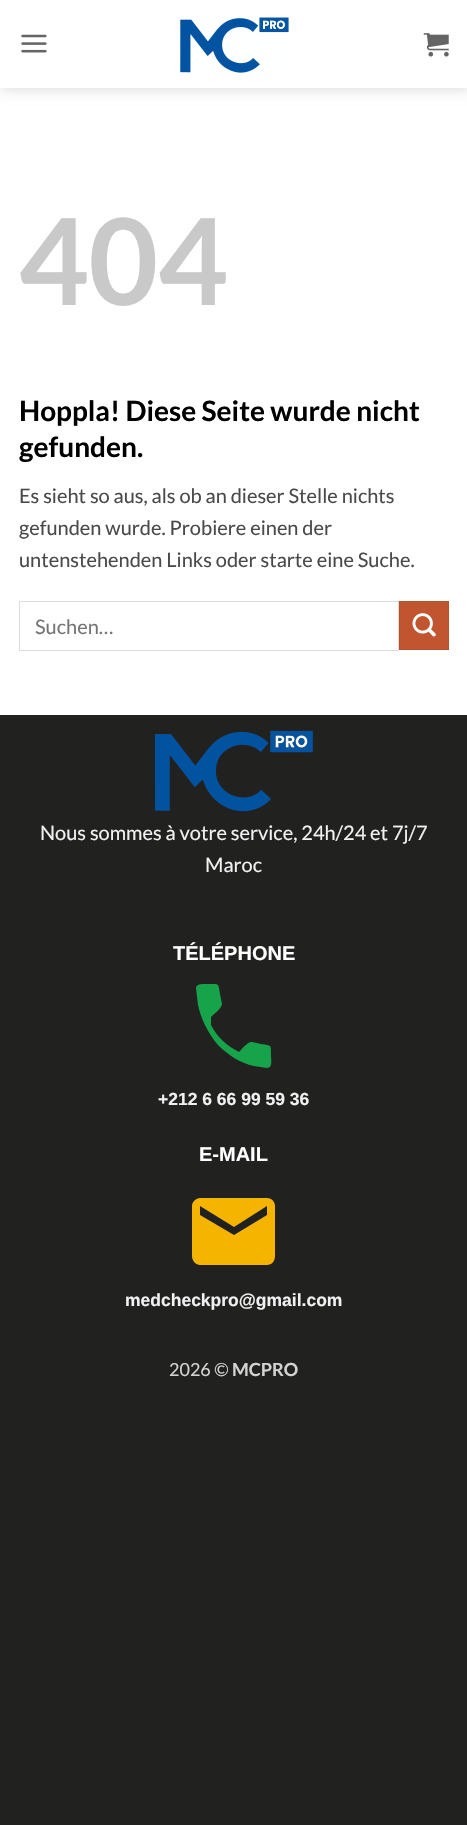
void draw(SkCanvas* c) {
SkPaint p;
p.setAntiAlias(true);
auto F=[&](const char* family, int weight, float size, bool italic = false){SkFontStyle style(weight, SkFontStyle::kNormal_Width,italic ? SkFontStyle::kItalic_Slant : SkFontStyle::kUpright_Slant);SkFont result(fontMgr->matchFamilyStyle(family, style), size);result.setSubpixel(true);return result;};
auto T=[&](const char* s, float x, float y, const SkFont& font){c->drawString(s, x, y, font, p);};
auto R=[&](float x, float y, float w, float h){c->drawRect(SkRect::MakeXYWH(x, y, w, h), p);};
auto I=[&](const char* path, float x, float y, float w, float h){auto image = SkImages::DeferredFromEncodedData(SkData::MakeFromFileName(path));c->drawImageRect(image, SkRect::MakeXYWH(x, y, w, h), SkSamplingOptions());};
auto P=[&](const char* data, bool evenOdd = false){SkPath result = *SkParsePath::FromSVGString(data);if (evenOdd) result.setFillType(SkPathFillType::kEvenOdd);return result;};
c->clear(0xff212120);
p.setColor(0xffffffff);
R(0,0,467,715);
c->save();
c->clipPath(P("M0 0h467v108h-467zm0 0h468v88h-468z",true),true);
p.setColor(0x26000000);
p.setMaskFilter(SkMaskFilter::MakeBlur(kNormal_SkBlurStyle, 6));
c->drawRect(SkRect::MakeXYWH(1,1,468,88),p);
p.setMaskFilter(nullptr);
c->restore();
I("1.png",21,34,26,19);
I("2.png",180,17,109,56);
I("3.png",423,33,26,24);
p.setColor(0xe6ffffff);
R(0,87,467,1);
auto f1 = F("Lato",700,120);
p.setColor(0xffc9c9c9);
T("404",19,305,f1);
auto f2 = F("Lato",700,28);
p.setColor(0xff000000);
T("Hoppla! Diese Seite wurde nicht",19,421,f2);
T("gefunden.",19,457,f2);
auto f3 = F("Lato",400,20);
p.setColor(0xff4a4a4a);
T("Es sieht so aus, als ob an dieser Stelle nichts",19,503,f3);
T("gefunden wurde. Probiere einen der",19,535,f3);
T("untenstehenden Links oder starte eine Suche.",19,567,f3);
p.setStroke(true);
p.setStrokeWidth(1);
p.setColor(0xffdddddd);
c->drawRect(SkRect::MakeXYWH(19.5,601.5,379,49),p);
p.setStroke(false);
p.setColor(0xff757575);
T("Suchen…",35,634,f3);
p.setColor(0xffc05530);
c->drawRect(SkRect::MakeXYWH(399.5,601.5,49,48),p);
p.setStroke(true);
p.setColor(0xffb6512e);
c->drawRect(SkRect::MakeXYWH(399.5,601.5,49,48),p);
I("4.png",412,613,24,24);
I("5.png",154,730,159,82);
p.setStroke(false);
p.setColor(0xfff1f1f1);
T("Nous sommes à votre service, 24h/24 et 7j/7",40,840,f3);
T("Maroc",205,872,f3);
auto f4 = F("Liberation Sans",700,20);
p.setColor(0xffffffff);
T("TÉLÉPHONE",173,960,f4);
p.setColor(0xff16a34a);
c->drawPath(P("M211 1025c6 12 16 21 28 27c2-2 9-11 13-10l9 2c11 2 10 0 10 12c0 3 2 12-4 12l-13-2c-14-3-26-11-36-21c-10-12-17-26-20-40l-2-17c0-5 9-4 12-4c12 0 10-1 12 10l2 10c0 4-8 10-11 13z"),p);
auto f5 = F("Liberation Sans",700,17.5);
p.setColor(0xfff1f1f1);
T("+212 6 66 99 59 36",158,1105,f5);
p.setColor(0xffffffff);
T("E-MAIL",199,1161,f4);
p.setColor(0xfff4b400);
c->drawPath(P("M267 1198h-67c-4 0-8 4-8 8v50c0 5 4 9 8 9h67c5 0 8-4 8-9v-50c0-4-3-8-8-8zm0 17l-33 20l-34-20v-9l34 21l33-21z"),p);
p.setColor(0xfff1f1f1);
T("medcheckpro@gmail.com",125,1306,f5);
auto f6 = F("Lato",400,18);
p.setColor(0xffd3d3d2);
T("2026 ©",169,1376,f6);
auto f7 = F("Lato",700,18);
T("MCPRO",232,1376,f7);
}
